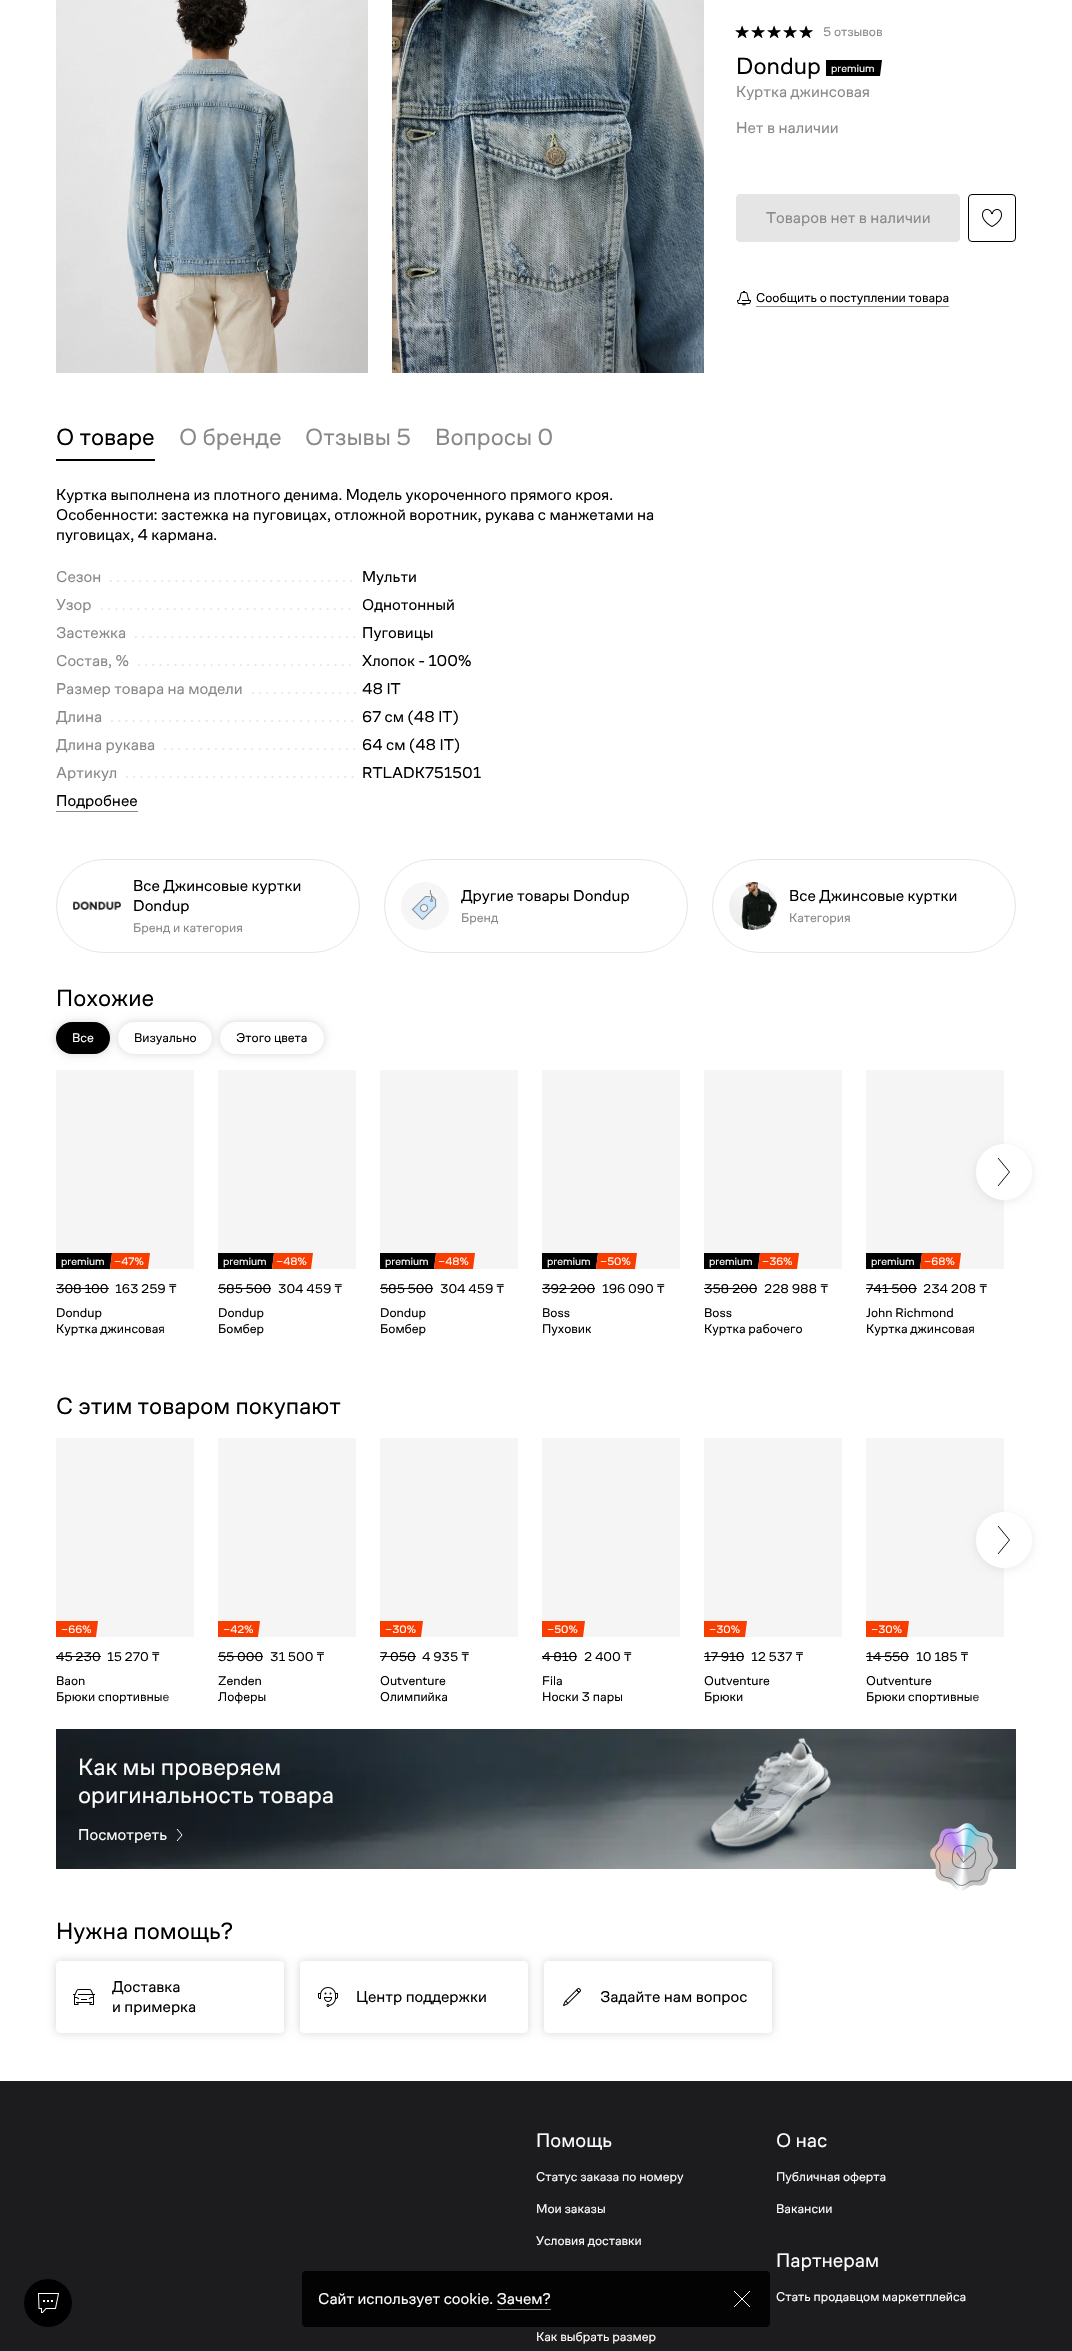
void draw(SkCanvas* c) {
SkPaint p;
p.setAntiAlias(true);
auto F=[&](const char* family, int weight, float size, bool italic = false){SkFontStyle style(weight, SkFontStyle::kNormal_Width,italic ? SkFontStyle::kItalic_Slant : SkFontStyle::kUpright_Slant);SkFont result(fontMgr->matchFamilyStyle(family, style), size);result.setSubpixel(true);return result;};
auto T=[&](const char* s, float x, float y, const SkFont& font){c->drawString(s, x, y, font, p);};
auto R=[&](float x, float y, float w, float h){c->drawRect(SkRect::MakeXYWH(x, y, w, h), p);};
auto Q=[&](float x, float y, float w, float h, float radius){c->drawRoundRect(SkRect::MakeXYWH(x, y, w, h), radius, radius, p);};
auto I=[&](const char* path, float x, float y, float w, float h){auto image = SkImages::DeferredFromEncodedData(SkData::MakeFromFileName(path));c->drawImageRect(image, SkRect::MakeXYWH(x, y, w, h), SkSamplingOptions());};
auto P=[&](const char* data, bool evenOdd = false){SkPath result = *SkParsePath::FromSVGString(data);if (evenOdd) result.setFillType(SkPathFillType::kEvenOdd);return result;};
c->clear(0xffffffff);
I("1.png",56,0,312,373);
I("2.png",392,0,312,373);
I("3.png",735,26,78,12);
I("4.png",735,26,78,12);
auto f1 = F("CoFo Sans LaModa",400,13);
p.setColor(0xff888888);
T("5 отзывов",823,36,f1);
auto f2 = F("CoFo Sans LaModa",400,24);
p.setColor(0xff000000);
T("Dondup",736,74,f2);
c->save();
c->clipRect(SkRect::MakeXYWH(826,60,57,16));
c->drawPath(P("M825 60h57l-2 16h-57z"),p);
c->restore();
auto f3 = F("CoFo Sans LaModa",400,11);
p.setColor(0xffffffff);
T("premium",831,72,f3);
auto f4 = F("CoFo Sans LaModa",400,16);
p.setColor(0xff888888);
T("Куртка джинсовая",736,97,f4);
T("Нет в наличии",736,133,f4);
p.setColor(0xffe5e5e5);
c->drawRoundRect(SkRect::MakeXYWH(736.5,194.5,223,47),3.5,3.5,p);
p.setStroke(true);
p.setStrokeWidth(1);
c->drawRoundRect(SkRect::MakeXYWH(736.5,194.5,223,47),3.5,3.5,p);
p.setStroke(false);
p.setColor(0xff888888);
T("Товаров нет в наличии",766,223,f4);
p.setStroke(true);
p.setColor(0xff000000);
c->drawRoundRect(SkRect::MakeXYWH(968.5,194.5,47,47),3.5,3.5,p);
I("5.png",982,209,20,18);
I("6.png",737,291,14,15);
p.setStroke(false);
T("Сообщить о поступлении товара",756,302,f1);
p.setColor(0xff888888);
R(756,306,193,1);
p.setColor(0xff000000);
R(56,459,99,2);
T("О товаре",56,445,f2);
p.setColor(0xff888888);
T("О бренде",179,445,f2);
T("Отзывы 5",305,445,f2);
T("Вопросы 0",435,445,f2);
p.setColor(0xff000000);
T("Куртка выполнена из плотного денима. Модель укороченного прямого кроя.",56,500,f4);
T("Особенности: застежка на пуговицах, отложной воротник, рукава с манжетами на",56,520,f4);
T("пуговицах, 4 кармана.",56,540,f4);
p.setColor(0xff888888);
T("Сезон",56,582,f4);
p.setColor(0xffe5e5e5);
T(". . . . . . . . . . . . . . . . . . . . . . . . . . . . . . . . . .",109,582,f4);
p.setColor(0xff000000);
T("Мульти",362,582,f4);
p.setColor(0xff888888);
T("Узор",56,610,f4);
p.setColor(0xffe5e5e5);
T(". . . . . . . . . . . . . . . . . . . . . . . . . . . . . . . . . . .",100,610,f4);
p.setColor(0xff000000);
T("Однотонный",362,610,f4);
p.setColor(0xff888888);
T("Застежка",56,638,f4);
p.setColor(0xffe5e5e5);
T(". . . . . . . . . . . . . . . . . . . . . . . . . . . . . . .",134,638,f4);
p.setColor(0xff000000);
T("Пуговицы",362,638,f4);
p.setColor(0xff888888);
T("Состав, %",56,666,f4);
p.setColor(0xffe5e5e5);
T(". . . . . . . . . . . . . . . . . . . . . . . . . . . . . .",137,666,f4);
p.setColor(0xff000000);
T("Хлопок - 100%",362,666,f4);
p.setColor(0xff888888);
T("Размер товара на модели",56,694,f4);
p.setColor(0xffe5e5e5);
T(". . . . . . . . . . . . . . .",251,694,f4);
p.setColor(0xff000000);
T("48 IT",362,694,f4);
p.setColor(0xff888888);
T("Длина",56,722,f4);
p.setColor(0xffe5e5e5);
T(". . . . . . . . . . . . . . . . . . . . . . . . . . . . . . . . . .",110,722,f4);
p.setColor(0xff000000);
T("67 см (48 IT)",362,722,f4);
p.setColor(0xff888888);
T("Длина рукава",56,750,f4);
p.setColor(0xffe5e5e5);
T(". . . . . . . . . . . . . . . . . . . . . . . . . . .",163,750,f4);
p.setColor(0xff000000);
T("64 см (48 IT)",362,750,f4);
p.setColor(0xff888888);
T("Артикул",56,778,f4);
p.setColor(0xffe5e5e5);
T(". . . . . . . . . . . . . . . . . . . . . . . . . . . . . . . .",125,778,f4);
p.setColor(0xff000000);
T("RTLADK751501",362,778,f4);
T("Подробнее",56,806,f4);
p.setColor(0xff888888);
R(56,811,82,1);
p.setStroke(true);
p.setColor(0xffe5e5e5);
c->drawRoundRect(SkRect::MakeXYWH(56.5,859.5,303,93),46.5,46.5,p);
I("7.png",73,901,48,9);
p.setStroke(false);
p.setColor(0xff000000);
T("Все Джинсовые куртки",133,891,f4);
T("Dondup",133,911,f4);
p.setColor(0xff888888);
T("Бренд и категория",133,932,f1);
p.setStroke(true);
p.setColor(0xffe5e5e5);
c->drawRoundRect(SkRect::MakeXYWH(384.5,859.5,303,93),46.5,46.5,p);
I("8.png",401,882,48,48);
p.setStroke(false);
p.setColor(0xff000000);
T("Другие товары Dondup",461,901,f4);
p.setColor(0xff888888);
T("Бренд",461,922,f1);
p.setStroke(true);
p.setColor(0xffe5e5e5);
c->drawRoundRect(SkRect::MakeXYWH(712.5,859.5,303,93),46.5,46.5,p);
I("9.png",729,882,48,48);
p.setStroke(false);
p.setColor(0xff000000);
T("Все Джинсовые куртки",789,901,f4);
p.setColor(0xff888888);
T("Категория",789,922,f1);
p.setColor(0xff000000);
T("Похожие",56,1006,f2);
p.setColor(0x29000000);
p.setMaskFilter(SkMaskFilter::MakeBlur(kNormal_SkBlurStyle, 4));
c->drawRoundRect(SkRect::MakeXYWH(56,1022,54,32),16,16,p);
p.setMaskFilter(nullptr);
p.setColor(0xff000000);
Q(56,1022,54,32,16);
p.setColor(0xffffffff);
T("Все",72,1042,f1);
p.setColor(0x29000000);
p.setMaskFilter(SkMaskFilter::MakeBlur(kNormal_SkBlurStyle, 4));
c->drawRoundRect(SkRect::MakeXYWH(118,1022,94,32),16,16,p);
p.setMaskFilter(nullptr);
p.setColor(0xffffffff);
Q(118,1022,94,32,16);
p.setColor(0xff000000);
T("Визуально",134,1042,f1);
p.setColor(0x29000000);
p.setMaskFilter(SkMaskFilter::MakeBlur(kNormal_SkBlurStyle, 4));
c->drawRoundRect(SkRect::MakeXYWH(220,1022,104,32),16,16,p);
p.setMaskFilter(nullptr);
p.setColor(0xffffffff);
Q(220,1022,104,32,16);
p.setColor(0xff000000);
T("Этого цвета",236,1042,f1);
p.setColor(0xfff5f5f5);
R(866,1070,138,199);
c->save();
c->clipPath(P("M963 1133h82v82h-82zm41 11c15.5 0 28 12.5 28 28c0 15.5-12.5 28-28 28c-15.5 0-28-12.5-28-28c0-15.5 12.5-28 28-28z",true),true);
p.setColor(0x14000000);
p.setMaskFilter(SkMaskFilter::MakeBlur(kNormal_SkBlurStyle, 4));
c->drawRoundRect(SkRect::MakeXYWH(976,1146,56,56),28,28,p);
p.setMaskFilter(nullptr);
c->restore();
p.setColor(0xf2ffffff);
c->drawCircle(1004,1172,28,p);
p.setStroke(true);
p.setColor(0xff0d0d0d);
c->drawPath(P("M998 1158l11.5 14l-11.5 14"),p);
p.setStroke(false);
p.setColor(0xfff5f5f5);
R(56,1070,138,199);
c->save();
c->clipRect(SkRect::MakeXYWH(56,1070,138,199));
p.setColor(0xff000000);
c->drawPath(P("M55 1253h57l-2 16h-57z"),p);
c->restore();
p.setColor(0xffffffff);
T("premium",61,1265,f3);
p.setColor(0xfff93c00);
c->drawPath(P("M112 1253h38l-2 16h-38z"),p);
p.setColor(0xffffffff);
T("−47%",114,1265,f3);
p.setColor(0xff000000);
T("308 100",56,1293,f1);
R(56,1288,53,1);
T("163 259 ₸",115,1293,f1);
T("Dondup",56,1317,f1);
T("Куртка джинсовая",56,1333,f1);
{
const SkColor colors[] = {0xffffffff,0x00ffffff};
const float stops[] = {0,1};
const SkPoint ends[] = {{194,1329}, {158,1329}};
p.setShader(SkGradientShader::MakeLinear(ends, colors, stops, 2, SkTileMode::kClamp));
p.setAlpha(255);
}
R(159,1326,5,7);
p.setShader(nullptr);
p.setColor(0xfff5f5f5);
R(218,1070,138,199);
c->save();
c->clipRect(SkRect::MakeXYWH(218,1070,138,199));
p.setColor(0xff000000);
c->drawPath(P("M217 1253h57l-2 16h-57z"),p);
c->restore();
p.setColor(0xffffffff);
T("premium",223,1265,f3);
p.setColor(0xfff93c00);
c->drawPath(P("M274 1253h39l-2 16h-39z"),p);
p.setColor(0xffffffff);
T("−48%",276,1265,f3);
p.setColor(0xff000000);
T("585 500",218,1293,f1);
R(218,1288,53,1);
T("304 459 ₸",278,1293,f1);
T("Dondup",218,1317,f1);
T("Бомбер",218,1333,f1);
p.setColor(0xfff5f5f5);
R(380,1070,138,199);
c->save();
c->clipRect(SkRect::MakeXYWH(380,1070,138,199));
p.setColor(0xff000000);
c->drawPath(P("M379 1253h57l-2 16h-57z"),p);
c->restore();
p.setColor(0xffffffff);
T("premium",385,1265,f3);
p.setColor(0xfff93c00);
c->drawPath(P("M436 1253h39l-2 16h-39z"),p);
p.setColor(0xffffffff);
T("−48%",438,1265,f3);
p.setColor(0xff000000);
T("585 500",380,1293,f1);
R(380,1288,53,1);
T("304 459 ₸",440,1293,f1);
T("Dondup",380,1317,f1);
T("Бомбер",380,1333,f1);
p.setColor(0xfff5f5f5);
R(542,1070,138,199);
c->save();
c->clipRect(SkRect::MakeXYWH(542,1070,138,199));
p.setColor(0xff000000);
c->drawPath(P("M541 1253h57l-2 16h-57z"),p);
c->restore();
p.setColor(0xffffffff);
T("premium",547,1265,f3);
p.setColor(0xfff93c00);
c->drawPath(P("M598 1253h39l-2 16h-39z"),p);
p.setColor(0xffffffff);
T("−50%",600,1265,f3);
p.setColor(0xff000000);
T("392 200",542,1293,f1);
R(542,1288,53,1);
T("196 090 ₸",602,1293,f1);
T("Boss",542,1317,f1);
T("Пуховик",542,1333,f1);
p.setColor(0xfff5f5f5);
R(704,1070,138,199);
c->save();
c->clipRect(SkRect::MakeXYWH(704,1070,138,199));
p.setColor(0xff000000);
c->drawPath(P("M703 1253h57l-2 16h-57z"),p);
c->restore();
p.setColor(0xffffffff);
T("premium",709,1265,f3);
p.setColor(0xfff93c00);
c->drawPath(P("M760 1253h39l-2 16h-39z"),p);
p.setColor(0xffffffff);
T("−36%",762,1265,f3);
p.setColor(0xff000000);
T("358 200",704,1293,f1);
R(704,1288,53,1);
T("228 988 ₸",764,1293,f1);
T("Boss",704,1317,f1);
T("Куртка рабочего",704,1333,f1);
c->save();
c->clipRect(SkRect::MakeXYWH(866,1070,138,199));
c->drawPath(P("M865 1253h57l-2 16h-57z"),p);
c->restore();
p.setColor(0xffffffff);
T("premium",871,1265,f3);
p.setColor(0xfff93c00);
c->drawPath(P("M922 1253h39l-2 16h-39z"),p);
p.setColor(0xffffffff);
T("−68%",924,1265,f3);
p.setColor(0xff000000);
T("741 500",866,1293,f1);
R(866,1288,51,1);
T("234 208 ₸",923,1293,f1);
T("John Richmond",866,1317,f1);
T("Куртка джинсовая",866,1333,f1);
{
const SkColor colors[] = {0xffffffff,0x00ffffff};
const float stops[] = {0,1};
const SkPoint ends[] = {{1004,1329}, {968,1329}};
p.setShader(SkGradientShader::MakeLinear(ends, colors, stops, 2, SkTileMode::kClamp));
p.setAlpha(255);
}
R(969,1326,5,7);
p.setShader(nullptr);
p.setColor(0xff000000);
T("С этим товаром покупают",56,1414,f2);
p.setColor(0xfff5f5f5);
R(866,1438,138,199);
c->save();
c->clipPath(P("M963 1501h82v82h-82zm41 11c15.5 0 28 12.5 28 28c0 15.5-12.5 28-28 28c-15.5 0-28-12.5-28-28c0-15.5 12.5-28 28-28z",true),true);
p.setColor(0x14000000);
p.setMaskFilter(SkMaskFilter::MakeBlur(kNormal_SkBlurStyle, 4));
c->drawRoundRect(SkRect::MakeXYWH(976,1514,56,56),28,28,p);
p.setMaskFilter(nullptr);
c->restore();
p.setColor(0xf2ffffff);
c->drawCircle(1004,1540,28,p);
p.setStroke(true);
p.setColor(0xff0d0d0d);
c->drawPath(P("M998 1526l11.5 14l-11.5 14"),p);
p.setStroke(false);
p.setColor(0xfff5f5f5);
R(56,1438,138,199);
c->save();
c->clipRect(SkRect::MakeXYWH(56,1438,138,199));
p.setColor(0xfff93c00);
c->drawPath(P("M55 1621h43l-2 16h-43z"),p);
c->restore();
p.setColor(0xffffffff);
T("−66%",61,1633,f3);
p.setColor(0xff000000);
T("45 230",56,1661,f1);
R(56,1656,45,1);
T("15 270 ₸",107,1661,f1);
T("Baon",56,1685,f1);
T("Брюки спортивные",56,1701,f1);
{
const SkColor colors[] = {0xffffffff,0x00ffffff};
const float stops[] = {0,1};
const SkPoint ends[] = {{194,1697}, {158,1697}};
p.setShader(SkGradientShader::MakeLinear(ends, colors, stops, 2, SkTileMode::kClamp));
p.setAlpha(255);
}
R(159,1694,10,8);
p.setShader(nullptr);
p.setColor(0xfff5f5f5);
R(218,1438,138,199);
c->save();
c->clipRect(SkRect::MakeXYWH(218,1438,138,199));
p.setColor(0xfff93c00);
c->drawPath(P("M217 1621h43l-2 16h-43z"),p);
c->restore();
p.setColor(0xffffffff);
T("−42%",223,1633,f3);
p.setColor(0xff000000);
T("55 000",218,1661,f1);
R(218,1656,45,1);
T("31 500 ₸",270,1661,f1);
T("Zenden",218,1685,f1);
T("Лоферы",218,1701,f1);
p.setColor(0xfff5f5f5);
R(380,1438,138,199);
c->save();
c->clipRect(SkRect::MakeXYWH(380,1438,138,199));
p.setColor(0xfff93c00);
c->drawPath(P("M379 1621h44l-2 16h-44z"),p);
c->restore();
p.setColor(0xffffffff);
T("−30%",385,1633,f3);
p.setColor(0xff000000);
T("7 050",380,1661,f1);
R(380,1656,36,1);
T("4 935 ₸",422,1661,f1);
T("Outventure",380,1685,f1);
T("Олимпийка",380,1701,f1);
p.setColor(0xfff5f5f5);
R(542,1438,138,199);
c->save();
c->clipRect(SkRect::MakeXYWH(542,1438,138,199));
p.setColor(0xfff93c00);
c->drawPath(P("M541 1621h44l-2 16h-44z"),p);
c->restore();
p.setColor(0xffffffff);
T("−50%",547,1633,f3);
p.setColor(0xff000000);
T("4 810",542,1661,f1);
R(542,1656,35,1);
T("2 400 ₸",584,1661,f1);
T("Fila",542,1685,f1);
T("Носки 3 пары",542,1701,f1);
p.setColor(0xfff5f5f5);
R(704,1438,138,199);
c->save();
c->clipRect(SkRect::MakeXYWH(704,1438,138,199));
p.setColor(0xfff93c00);
c->drawPath(P("M703 1621h44l-2 16h-44z"),p);
c->restore();
p.setColor(0xffffffff);
T("−30%",709,1633,f3);
p.setColor(0xff000000);
T("17 910",704,1661,f1);
R(704,1656,40,1);
T("12 537 ₸",751,1661,f1);
T("Outventure",704,1685,f1);
T("Брюки",704,1701,f1);
c->save();
c->clipRect(SkRect::MakeXYWH(866,1438,138,199));
p.setColor(0xfff93c00);
c->drawPath(P("M865 1621h44l-2 16h-44z"),p);
c->restore();
p.setColor(0xffffffff);
T("−30%",871,1633,f3);
p.setColor(0xff000000);
T("14 550",866,1661,f1);
R(866,1656,43,1);
T("10 185 ₸",916,1661,f1);
T("Outventure",866,1685,f1);
T("Брюки спортивные",866,1701,f1);
{
const SkColor colors[] = {0xffffffff,0x00ffffff};
const float stops[] = {0,1};
const SkPoint ends[] = {{1004,1697}, {968,1697}};
p.setShader(SkGradientShader::MakeLinear(ends, colors, stops, 2, SkTileMode::kClamp));
p.setAlpha(255);
}
R(969,1694,10,8);
I("10.png",56,1729,960,140);
p.setShader(nullptr);
p.setColor(0xffffffff);
T("Как мы проверяем",78,1775,f2);
T("оригинальность товара",78,1803,f2);
T("Посмотреть",78,1840,f4);
p.setStroke(true);
c->drawPath(P("M177 1829l5 6l-5 6"),p);
I("11.png",692,1737,174,126);
I("12.png",930,1823,68,68);
p.setStroke(false);
p.setColor(0xff000000);
T("Нужна помощь?",56,1939,f2);
c->save();
c->clipPath(P("M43 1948h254v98h-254zm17 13h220c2 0 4 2 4 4v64c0 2-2 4-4 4h-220c-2 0-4-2-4-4v-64c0-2 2-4 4-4z",true),true);
p.setColor(0x29000000);
p.setMaskFilter(SkMaskFilter::MakeBlur(kNormal_SkBlurStyle, 4));
c->drawRoundRect(SkRect::MakeXYWH(56,1961,228,72),4,4,p);
p.setMaskFilter(nullptr);
c->restore();
I("13.png",73,1989,22,16);
p.setColor(0xff000000);
T("Доставка",112,1992,f4);
T("и примерка",112,2012,f4);
c->save();
c->clipPath(P("M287 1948h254v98h-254zm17 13h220c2 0 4 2 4 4v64c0 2-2 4-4 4h-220c-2 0-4-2-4-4v-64c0-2 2-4 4-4z",true),true);
p.setColor(0x29000000);
p.setMaskFilter(SkMaskFilter::MakeBlur(kNormal_SkBlurStyle, 4));
c->drawRoundRect(SkRect::MakeXYWH(300,1961,228,72),4,4,p);
p.setMaskFilter(nullptr);
c->restore();
I("14.png",318,1987,20,20);
p.setColor(0xff000000);
T("Центр поддержки",356,2002,f4);
c->save();
c->clipPath(P("M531 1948h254v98h-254zm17 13h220c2 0 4 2 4 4v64c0 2-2 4-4 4h-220c-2 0-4-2-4-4v-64c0-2 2-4 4-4z",true),true);
p.setColor(0x29000000);
p.setMaskFilter(SkMaskFilter::MakeBlur(kNormal_SkBlurStyle, 4));
c->drawRoundRect(SkRect::MakeXYWH(544,1961,228,72),4,4,p);
p.setMaskFilter(nullptr);
c->restore();
I("15.png",563,1988,18,18);
p.setColor(0xff000000);
T("Задайте нам вопрос",600,2002,f4);
p.setColor(0xff1c1c1e);
R(0,2081,1072,270);
p.setColor(0xe6000000);
Q(302,2271,468,56,4);
p.setColor(0xffffffff);
T("Сайт использует cookie. Зачем?",318,2304,f4);
p.setColor(0xff888888);
R(497,2309,54,1);
p.setStroke(true);
p.setColor(0xffffffff);
c->drawPath(P("M734 2307l16-16m-16 0l16 16"),p);
p.setStroke(false);
p.setColor(0xff000000);
c->drawCircle(48,2303,24,p);
I("16.png",38,2293,22,20);
auto f5 = F("CoFo Sans LaModa",400,20);
p.setColor(0xffffffff);
T("Помощь",536,2147,f5);
T("Статус заказа по номеру",536,2181,f1);
T("Мои заказы",536,2213,f1);
T("Условия доставки",536,2245,f1);
T("Как выбрать размер",536,2341,f1);
T("О нас",776,2147,f5);
T("Публичная оферта",776,2181,f1);
T("Вакансии",776,2213,f1);
T("Партнерам",776,2267,f5);
T("Стать продавцом маркетплейса",776,2301,f1);
}
